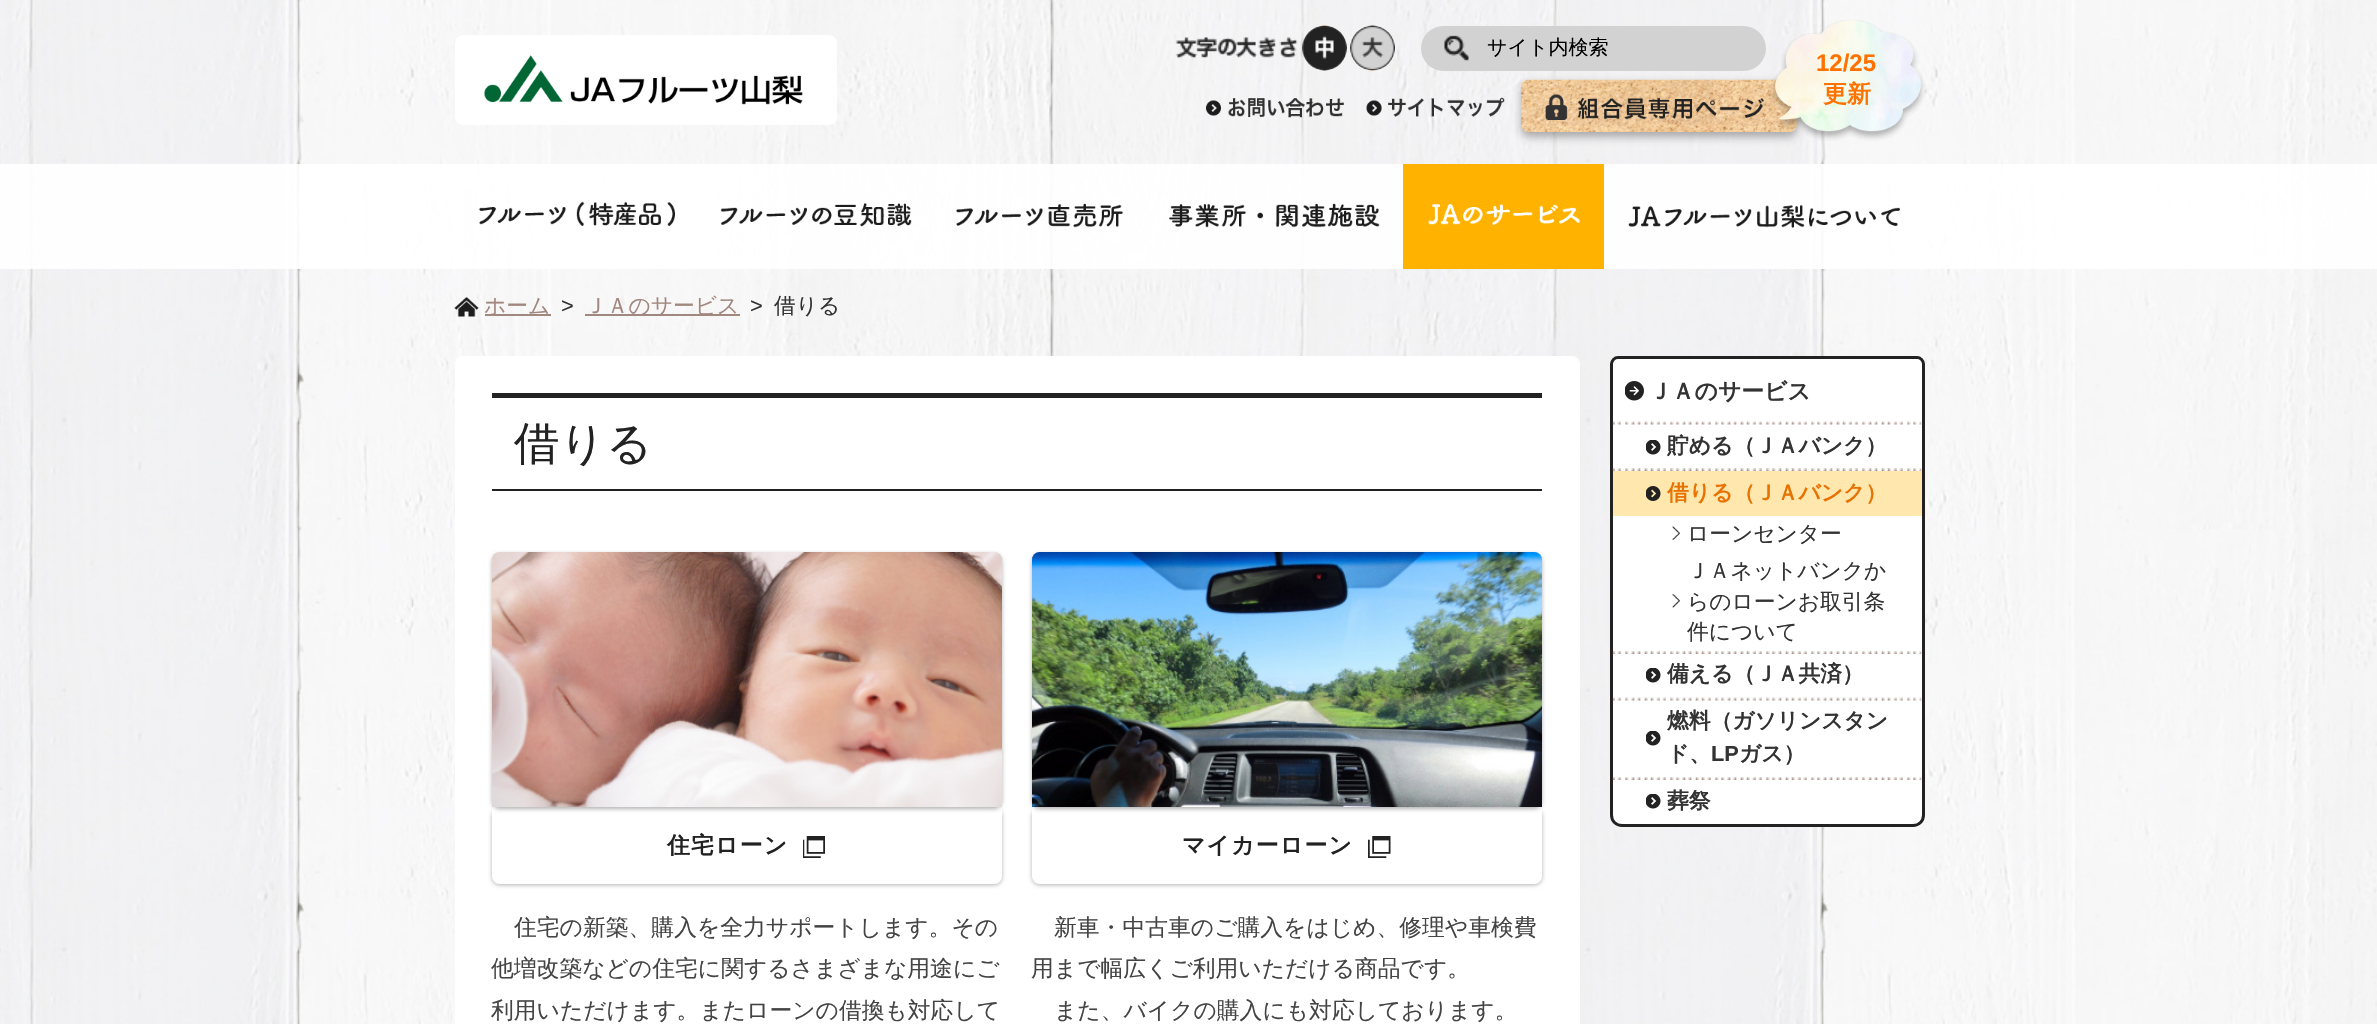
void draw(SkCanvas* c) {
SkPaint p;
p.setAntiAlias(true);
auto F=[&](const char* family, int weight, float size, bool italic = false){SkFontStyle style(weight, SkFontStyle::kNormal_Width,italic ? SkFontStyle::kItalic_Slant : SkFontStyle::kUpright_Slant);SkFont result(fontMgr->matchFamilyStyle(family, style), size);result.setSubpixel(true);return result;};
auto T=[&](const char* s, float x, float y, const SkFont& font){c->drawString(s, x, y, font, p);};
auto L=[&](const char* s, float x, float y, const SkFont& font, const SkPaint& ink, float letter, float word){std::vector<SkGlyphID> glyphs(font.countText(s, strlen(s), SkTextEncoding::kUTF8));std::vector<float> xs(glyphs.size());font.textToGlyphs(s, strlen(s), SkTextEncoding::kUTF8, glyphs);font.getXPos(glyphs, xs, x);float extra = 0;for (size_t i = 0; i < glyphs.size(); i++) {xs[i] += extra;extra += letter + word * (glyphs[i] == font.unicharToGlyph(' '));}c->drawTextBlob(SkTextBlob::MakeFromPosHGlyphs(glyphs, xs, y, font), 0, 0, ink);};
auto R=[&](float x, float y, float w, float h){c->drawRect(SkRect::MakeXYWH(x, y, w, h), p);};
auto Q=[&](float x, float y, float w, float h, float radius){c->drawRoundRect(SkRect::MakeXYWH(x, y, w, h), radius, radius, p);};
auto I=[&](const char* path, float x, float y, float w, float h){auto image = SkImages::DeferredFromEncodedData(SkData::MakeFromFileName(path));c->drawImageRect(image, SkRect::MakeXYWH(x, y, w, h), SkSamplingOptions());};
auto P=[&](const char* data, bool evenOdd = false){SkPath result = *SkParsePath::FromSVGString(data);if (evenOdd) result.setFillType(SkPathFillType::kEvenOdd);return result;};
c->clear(0xffffffff);
I("1.png",0,0,2377,1024);
p.setColor(0xffffffff);
Q(455,35,382,90,8);
I("2.png",484,55,319,50);
I("3.png",1175,37,123,22);
I("4.png",1302,25,45,46);
I("5.png",1350,25,45,46);
p.setColor(0xffd2d2d2);
Q(1421,26,345,45,22.5);
I("6.png",1444,35,25,26);
auto f1 = F("WenQuanYi Zen Hei",500,20);
p.setColor(0xff000000);
T("サイト内検索",1487,54,f1);
I("7.png",1206,98,138,20);
I("8.png",1366,97,139,20);
p.setColor(0x4d000000);
p.setMaskFilter(SkMaskFilter::MakeBlur(kNormal_SkBlurStyle, 4));
c->drawRoundRect(SkRect::MakeXYWH(1521,84,276,53),8,8,p);
p.setMaskFilter(nullptr);
I("9.png",1521,79,276,53);
I("10.png",1770,20,156,121);
auto f2 = F("Liberation Sans",700,24);
p.setColor(0xffff7200);
T("12/25",1816,71,f2);
auto f3 = F("WenQuanYi Zen Hei",700,24);
T("更新",1823,102,f3);
p.setColor(0xe6ffffff);
R(0,164,2377,105);
I("11.png",479,201,196,25);
I("12.png",720,203,192,24);
I("13.png",956,203,167,25);
I("14.png",1169,203,211,25);
p.setColor(0xffffb300);
R(1403,164,201,105);
I("15.png",1428,204,153,21);
I("16.png",1628,204,272,24);
I("17.png",454,297,25,20);
p.setColor(0xffa1887f);
R(485,314,66,2);
auto f4 = F("WenQuanYi Zen Hei",500,21.75);
T("ホーム",484,313,f4);
auto f5 = F("Liberation Sans",400,21.75);
p.setColor(0xff333333);
T(">",561,313,f5);
p.setColor(0xffa1887f);
R(585,314,155,2);
T("ＪＡのサービス",585,313,f4);
p.setColor(0xff333333);
T(">",750,313,f5);
T("借りる",774,313,f4);
p.setColor(0xffffffff);
Q(455,356,1125,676,8);
p.setColor(0xff222222);
R(492,393,1050,5);
R(492,489,1050,2);
auto f6 = F("WenQuanYi Zen Hei",500,45.5);
T("借りる",514,459,f6);
p.setColor(0x4d000000);
p.setMaskFilter(SkMaskFilter::MakeBlur(kNormal_SkBlurStyle, 2));
c->drawRoundRect(SkRect::MakeXYWH(492,809,510,76),8,8,p);
p.setMaskFilter(nullptr);
p.setColor(0xffffffff);
c->drawPath(P("M492 807h510v69c0 4.5-3.5 8-8 8h-494c-4.5 0-8-3.5-8-8z"),p);
p.setColor(0x4d000000);
p.setMaskFilter(SkMaskFilter::MakeBlur(kNormal_SkBlurStyle, 2));
c->drawRoundRect(SkRect::MakeXYWH(492,554,510,255),8,8,p);
p.setMaskFilter(nullptr);
I("18.png",492,552,510,255);
auto f7 = F("WenQuanYi Zen Hei",700,22.8);
p.setColor(0xff222222);
L("住宅ローン",667,853,f7,p,1.25,0);
I("19.png",803,836,22,22);
auto f8 = F("WenQuanYi Zen Hei",500,22.8);
p.setColor(0xff444444);
T("住宅の新築、購入を全力サポートします。その",514,935,f8);
T("他増改築などの住宅に関するさまざまな用途にご",491,976,f8);
T("利用いただけます。またローンの借換も対応して",491,1018,f8);
p.setColor(0x4d000000);
p.setMaskFilter(SkMaskFilter::MakeBlur(kNormal_SkBlurStyle, 2));
c->drawRoundRect(SkRect::MakeXYWH(1032,809,510,76),8,8,p);
p.setMaskFilter(nullptr);
p.setColor(0xffffffff);
c->drawPath(P("M1032 807h510v69c0 4.5-3.5 8-8 8h-494c-4.5 0-8-3.5-8-8z"),p);
p.setColor(0x4d000000);
p.setMaskFilter(SkMaskFilter::MakeBlur(kNormal_SkBlurStyle, 2));
c->drawRoundRect(SkRect::MakeXYWH(1032,554,510,255),8,8,p);
p.setMaskFilter(nullptr);
I("20.png",1032,552,510,255);
p.setColor(0xff222222);
L("マイカーローン",1182,853,f7,p,1.25,0);
I("21.png",1368,836,23,22);
p.setColor(0xff444444);
T("新車・中古車のご購入をはじめ、修理や車検費",1054,935,f8);
T("用まで幅広くご利用いただける商品です。",1031,976,f8);
T("また、バイクの購入にも対応しております。",1054,1018,f8);
p.setColor(0xffffffff);
c->drawPath(P("M1618 357.5h299c3.5 0 6.5 3 6.5 6.5v451c0 6-4.5 10.5-10.5 10.5h-291c-6 0-10.5-4.5-10.5-10.5v-451c0-3.5 3-6.5 6.5-6.5z"),p);
p.setStroke(true);
p.setStrokeWidth(3);
p.setColor(0xff222222);
c->drawPath(P("M1618 357.5h299c3.5 0 6.5 3 6.5 6.5v451c0 6-4.5 10.5-10.5 10.5h-291c-6 0-10.5-4.5-10.5-10.5v-451c0-3.5 3-6.5 6.5-6.5z"),p);
I("22.png",1625,381,19,20);
p.setStroke(false);
p.setColor(0xff333333);
T("ＪＡのサービス",1649,399,f7);
I("23.png",1612,421,310,4);
I("24.png",1646,440,15,15);
auto f9 = F("WenQuanYi Zen Hei",700,21.75);
T("貯める（ＪＡバンク）",1667,453,f9);
I("25.png",1612,468,310,3);
p.setColor(0xffffe7ad);
R(1613,471,309,45);
I("26.png",1646,486,15,15);
p.setColor(0xffe77200);
T("借りる（ＪＡバンク）",1667,500,f9);
I("27.png",1672,526,8,14);
p.setColor(0xff333333);
T("ローンセンター",1687,541,f4);
I("28.png",1672,594,8,14);
T("ＪＡネットバンクか",1687,578,f4);
T("らのローンお取引条",1687,609,f4);
T("件について",1687,639,f4);
I("25.png",1612,651,310,3);
I("24.png",1646,668,15,15);
T("備える（ＪＡ共済）",1667,681,f9);
I("23.png",1612,697,310,4);
I("24.png",1646,731,15,15);
T("燃料（ガソリンスタン",1667,728,f9);
T("ド、",1667,761,f9);
auto f10 = F("Liberation Sans",700,21.75);
T("LP",1711,761,f10);
T("ガス）",1739,761,f9);
I("25.png",1612,777,310,3);
I("24.png",1646,794,15,15);
T("葬祭",1667,808,f9);
}
